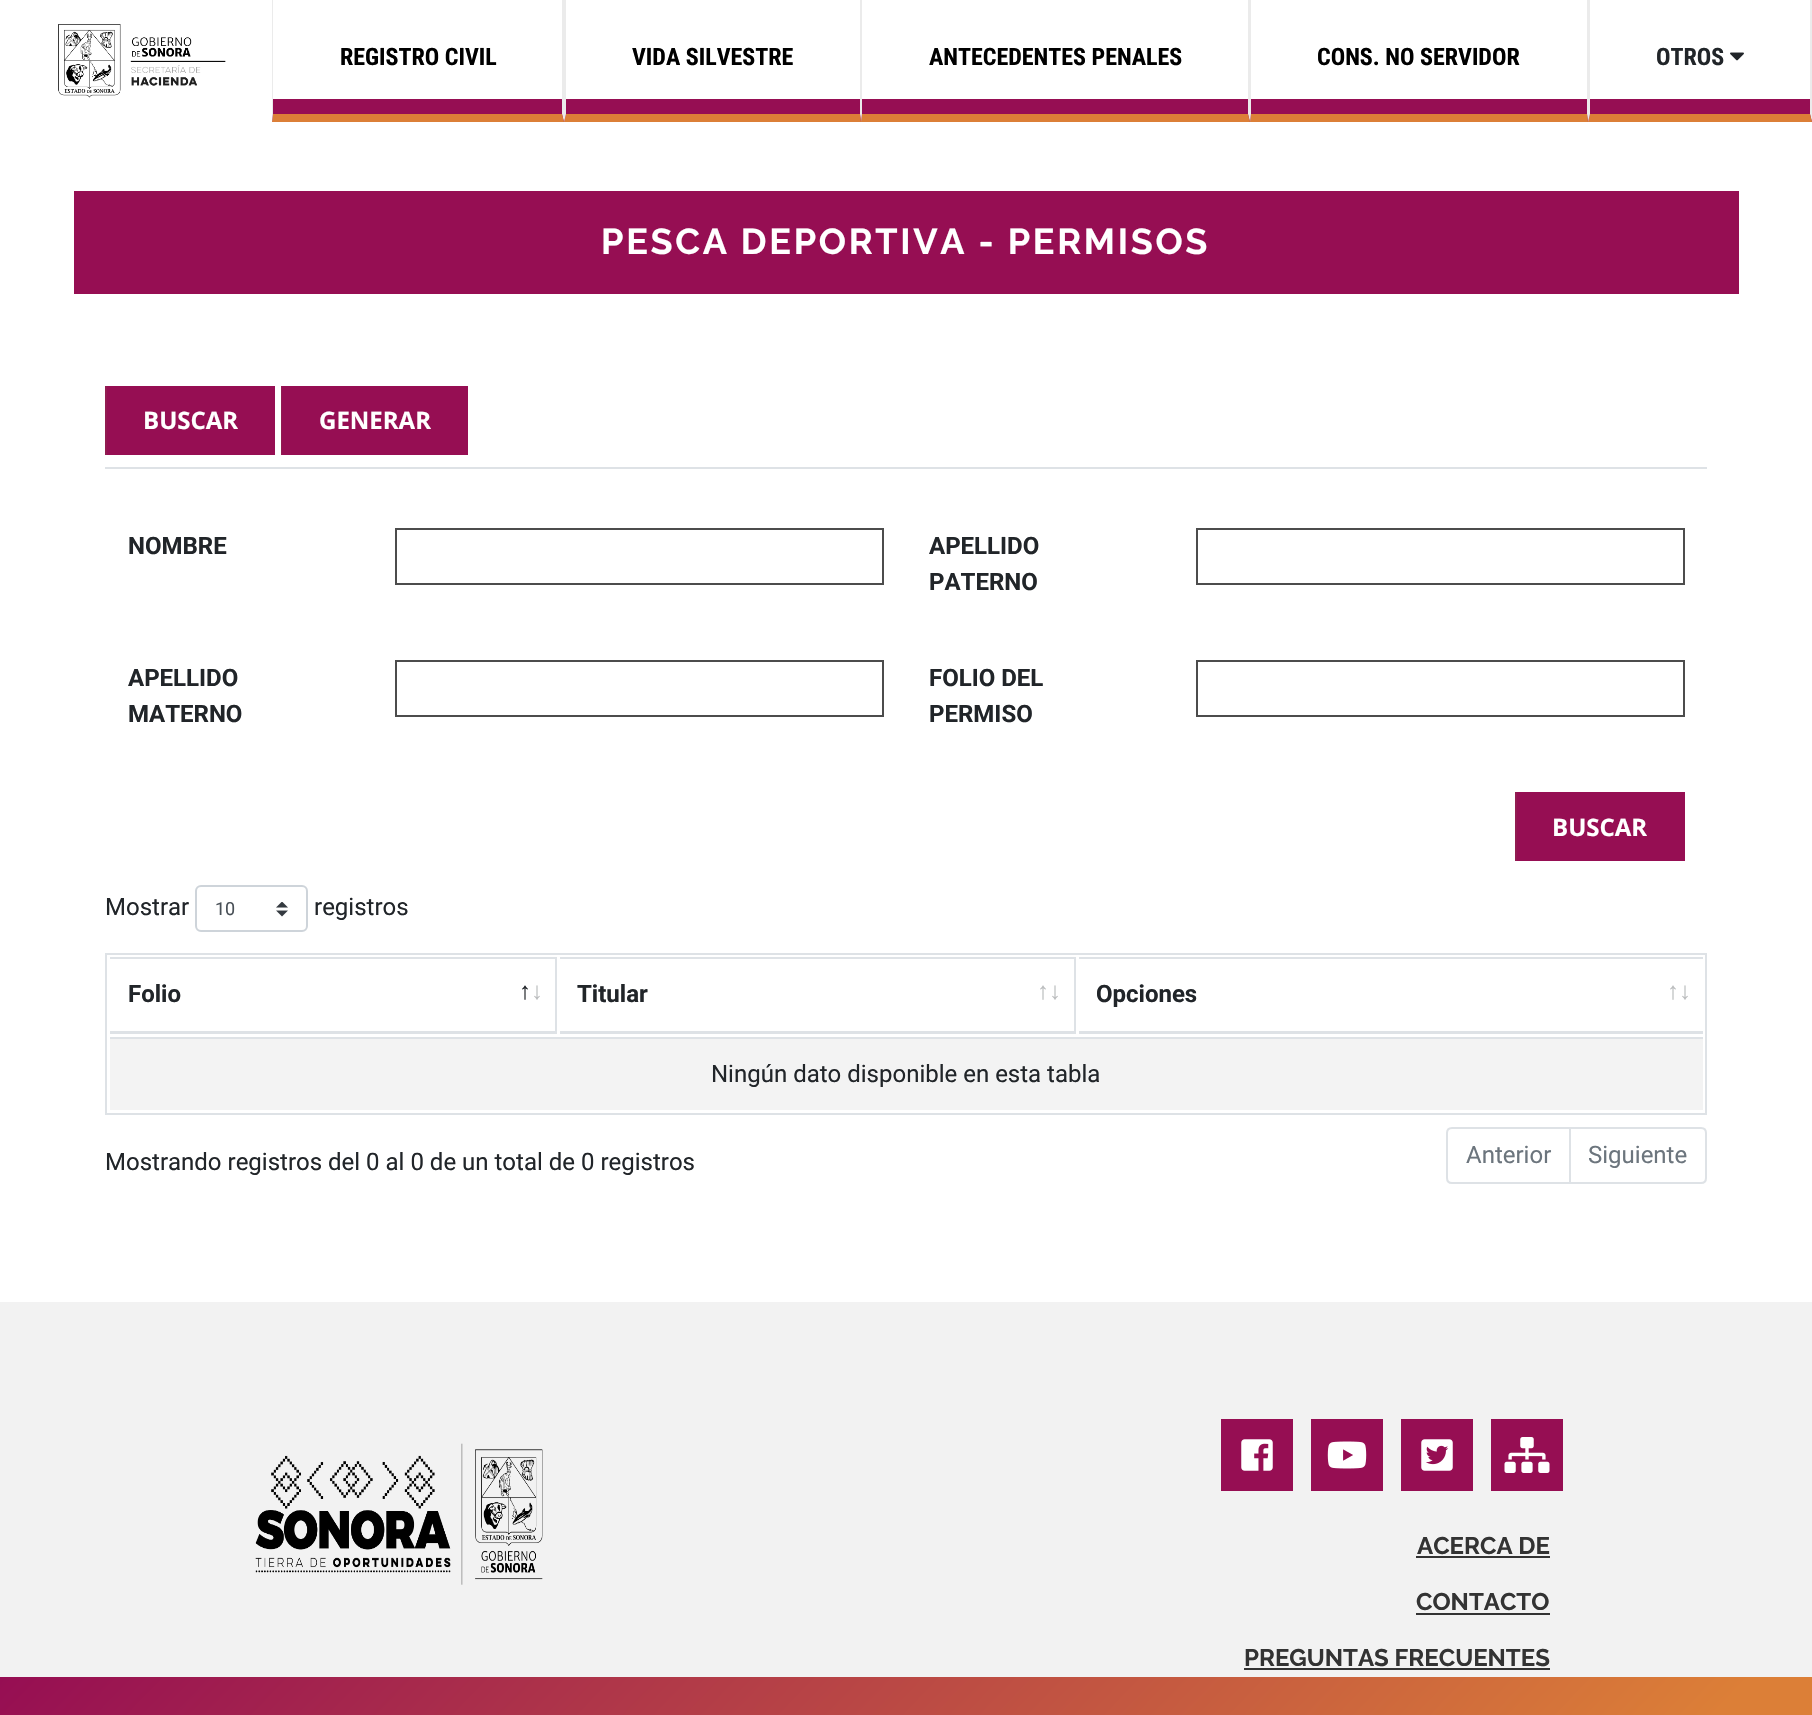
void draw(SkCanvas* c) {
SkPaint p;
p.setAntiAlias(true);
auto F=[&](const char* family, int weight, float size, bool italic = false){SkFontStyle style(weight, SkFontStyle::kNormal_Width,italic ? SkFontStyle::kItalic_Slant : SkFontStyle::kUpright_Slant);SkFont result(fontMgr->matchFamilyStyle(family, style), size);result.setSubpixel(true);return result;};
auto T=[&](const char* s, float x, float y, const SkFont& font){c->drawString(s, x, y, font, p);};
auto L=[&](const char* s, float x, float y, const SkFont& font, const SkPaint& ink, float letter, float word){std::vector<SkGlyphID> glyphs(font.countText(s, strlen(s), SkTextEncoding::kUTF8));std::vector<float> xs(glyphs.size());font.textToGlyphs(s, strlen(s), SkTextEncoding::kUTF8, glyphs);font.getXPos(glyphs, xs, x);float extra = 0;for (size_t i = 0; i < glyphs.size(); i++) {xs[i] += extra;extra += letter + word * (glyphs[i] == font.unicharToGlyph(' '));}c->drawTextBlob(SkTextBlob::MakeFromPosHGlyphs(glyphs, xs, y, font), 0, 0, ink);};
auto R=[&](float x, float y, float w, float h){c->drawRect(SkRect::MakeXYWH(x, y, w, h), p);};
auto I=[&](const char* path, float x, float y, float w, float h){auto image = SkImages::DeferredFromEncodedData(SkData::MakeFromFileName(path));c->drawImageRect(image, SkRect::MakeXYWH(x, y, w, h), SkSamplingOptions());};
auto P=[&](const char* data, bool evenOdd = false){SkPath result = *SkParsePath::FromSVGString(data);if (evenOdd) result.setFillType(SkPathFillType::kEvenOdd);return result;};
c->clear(0xffffffff);
I("1.png",58,24,168,74);
p.setColor(0xff960e53);
R(272,99,1540,23);
p.setColor(0xffebebeb);
c->drawPath(P("M564 0v122l-2-8v-114z"),p);
p.setColor(0xffdc7f37);
c->drawPath(P("M564 122h-292l1-8h289z"),p);
p.setColor(0xffebebeb);
c->drawPath(P("M272 122v-122h1v114z"),p);
auto f1 = F("Roboto Condensed",700,24);
p.setColor(0xff000000);
T("REGISTRO CIVIL",340,65,f1);
p.setColor(0xffebebeb);
c->drawPath(P("M861 0v122l-1-8v-114z"),p);
p.setColor(0xffdc7f37);
c->drawPath(P("M861 122h-297l2-8h294z"),p);
p.setColor(0xffebebeb);
c->drawPath(P("M564 122v-122h2v114z"),p);
p.setColor(0xff000000);
T("VIDA SILVESTRE",632,65,f1);
p.setColor(0xffebebeb);
c->drawPath(P("M1250 0v122l-2-8v-114z"),p);
p.setColor(0xffdc7f37);
c->drawPath(P("M1250 122h-389l1-8h386z"),p);
p.setColor(0xffebebeb);
c->drawPath(P("M861 122v-122h1v114z"),p);
p.setColor(0xff000000);
T("ANTECEDENTES PENALES",929,65,f1);
p.setColor(0xffebebeb);
c->drawPath(P("M1588 0v122l-1-8v-114z"),p);
p.setColor(0xffdc7f37);
c->drawPath(P("M1588 122h-338l1-8h336z"),p);
p.setColor(0xffebebeb);
c->drawPath(P("M1250 122v-122h1v114z"),p);
p.setColor(0xff000000);
T("CONS. NO SERVIDOR",1317,65,f1);
p.setColor(0xffebebeb);
c->drawPath(P("M1812 0v122l-2-8v-114z"),p);
p.setColor(0xffdc7f37);
c->drawPath(P("M1812 122h-224l2-8h220z"),p);
p.setColor(0xffebebeb);
c->drawPath(P("M1588 122v-122h2v114z"),p);
p.setColor(0xff212529);
T("OTROS",1656,65,f1);
I("2.png",1730,52,14,9);
p.setColor(0xff960e53);
R(74,191,1665,103);
auto f2 = F("Raleway",700,36);
p.setColor(0xffffffff);
L("PESCA DEPORTIVA - PERMISOS",601,254,f2,p,2.7,0);
p.setColor(0xffdee2e6);
R(105,467,1602,2);
{
const SkColor colors[] = {0xff960e53,0xff960e53,0xffbd2d6e,0xff901c50};
const float stops[] = {0,.3,.89,1};
const SkPoint ends[] = {{-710,333}, {107,375}};
p.setShader(SkGradientShader::MakeLinear(ends, colors, stops, 4, SkTileMode::kClamp));
p.setAlpha(255);
}
R(105,386,2,1);
{
const SkColor colors[] = {0xff960e53,0xff960e53,0xffbd2d6e,0xff901c50};
const float stops[] = {0,.3,.89,1};
const SkPoint ends[] = {{106,333}, {923,375}};
p.setShader(SkGradientShader::MakeLinear(ends, colors, stops, 4, SkTileMode::kClamp));
p.setAlpha(255);
}
R(107,386,168,1);
{
const SkColor colors[] = {0xff960e53,0xff960e53,0xffbd2d6e,0xff901c50};
const float stops[] = {0,.3,.89,1};
const SkPoint ends[] = {{-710,399}, {107,441}};
p.setShader(SkGradientShader::MakeLinear(ends, colors, stops, 4, SkTileMode::kClamp));
p.setAlpha(255);
}
R(105,387,2,66);
{
const SkColor colors[] = {0xff960e53,0xff960e53,0xffbd2d6e,0xff901c50};
const float stops[] = {0,.3,.89,1};
const SkPoint ends[] = {{106,399}, {923,441}};
p.setShader(SkGradientShader::MakeLinear(ends, colors, stops, 4, SkTileMode::kClamp));
p.setAlpha(255);
}
R(107,387,168,66);
{
const SkColor colors[] = {0xff960e53,0xff960e53,0xffbd2d6e,0xff901c50};
const float stops[] = {0,.3,.89,1};
const SkPoint ends[] = {{-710,465}, {107,507}};
p.setShader(SkGradientShader::MakeLinear(ends, colors, stops, 4, SkTileMode::kClamp));
p.setAlpha(255);
}
R(105,453,2,2);
{
const SkColor colors[] = {0xff960e53,0xff960e53,0xffbd2d6e,0xff901c50};
const float stops[] = {0,.3,.89,1};
const SkPoint ends[] = {{106,465}, {923,507}};
p.setShader(SkGradientShader::MakeLinear(ends, colors, stops, 4, SkTileMode::kClamp));
p.setAlpha(255);
}
R(107,453,168,2);
auto f3 = F("Open Sans",700,24);
p.setShader(nullptr);
p.setColor(0xffffffff);
T("BUSCAR",143,429,f3);
{
const SkColor colors[] = {0xff960e53,0xff960e53,0xffbd2d6e,0xff901c50};
const float stops[] = {0,.3,.89,1};
const SkPoint ends[] = {{-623,330}, {282,378}};
p.setShader(SkGradientShader::MakeLinear(ends, colors, stops, 4, SkTileMode::kClamp));
p.setAlpha(255);
}
R(281,386,1,1);
{
const SkColor colors[] = {0xff960e53,0xff960e53,0xffbd2d6e,0xff901c50};
const float stops[] = {0,.3,.89,1};
const SkPoint ends[] = {{282,330}, {1187,378}};
p.setShader(SkGradientShader::MakeLinear(ends, colors, stops, 4, SkTileMode::kClamp));
p.setAlpha(255);
}
R(282,386,186,1);
{
const SkColor colors[] = {0xff960e53,0xff960e53,0xffbd2d6e,0xff901c50};
const float stops[] = {0,.3,.89,1};
const SkPoint ends[] = {{-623,396}, {282,444}};
p.setShader(SkGradientShader::MakeLinear(ends, colors, stops, 4, SkTileMode::kClamp));
p.setAlpha(255);
}
R(281,387,1,66);
{
const SkColor colors[] = {0xff960e53,0xff960e53,0xffbd2d6e,0xff901c50};
const float stops[] = {0,.3,.89,1};
const SkPoint ends[] = {{282,396}, {1187,444}};
p.setShader(SkGradientShader::MakeLinear(ends, colors, stops, 4, SkTileMode::kClamp));
p.setAlpha(255);
}
R(282,387,186,66);
{
const SkColor colors[] = {0xff960e53,0xff960e53,0xffbd2d6e,0xff901c50};
const float stops[] = {0,.3,.89,1};
const SkPoint ends[] = {{-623,462}, {282,510}};
p.setShader(SkGradientShader::MakeLinear(ends, colors, stops, 4, SkTileMode::kClamp));
p.setAlpha(255);
}
R(281,453,1,2);
{
const SkColor colors[] = {0xff960e53,0xff960e53,0xffbd2d6e,0xff901c50};
const float stops[] = {0,.3,.89,1};
const SkPoint ends[] = {{282,462}, {1187,510}};
p.setShader(SkGradientShader::MakeLinear(ends, colors, stops, 4, SkTileMode::kClamp));
p.setAlpha(255);
}
R(282,453,186,2);
p.setShader(nullptr);
p.setColor(0xffffffff);
T("GENERAR",319,429,f3);
auto f4 = F("Roboto",700,24);
p.setColor(0xff212529);
T("NOMBRE",128,554,f4);
p.setStroke(true);
p.setStrokeWidth(2);
p.setColor(0xff4c4c4c);
c->drawRect(SkRect::MakeXYWH(396,529,487,55),p);
p.setStroke(false);
p.setColor(0xff212529);
T("APELLIDO",929,554,f4);
T("PATERNO",929,590,f4);
p.setStroke(true);
p.setColor(0xff4c4c4c);
c->drawRect(SkRect::MakeXYWH(1197,529,487,55),p);
p.setStroke(false);
p.setColor(0xff212529);
T("APELLIDO",128,686,f4);
T("MATERNO",128,722,f4);
p.setStroke(true);
p.setColor(0xff4c4c4c);
c->drawRect(SkRect::MakeXYWH(396,661,487,55),p);
p.setStroke(false);
p.setColor(0xff212529);
T("FOLIO DEL",929,686,f4);
T("PERMISO",929,722,f4);
p.setStroke(true);
p.setColor(0xff4c4c4c);
c->drawRect(SkRect::MakeXYWH(1197,661,487,55),p);
p.setStroke(false);
{
const SkColor colors[] = {0xff960e53,0xff960e53,0xffbd2d6e,0xff901c50};
const float stops[] = {0,.3,.89,1};
const SkPoint ends[] = {{700,739}, {1517,782}};
p.setShader(SkGradientShader::MakeLinear(ends, colors, stops, 4, SkTileMode::kClamp));
p.setAlpha(255);
}
R(1515,792,2,2);
{
const SkColor colors[] = {0xff960e53,0xff960e53,0xffbd2d6e,0xff901c50};
const float stops[] = {0,.3,.89,1};
const SkPoint ends[] = {{1516,739}, {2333,782}};
p.setShader(SkGradientShader::MakeLinear(ends, colors, stops, 4, SkTileMode::kClamp));
p.setAlpha(255);
}
R(1517,792,168,2);
{
const SkColor colors[] = {0xff960e53,0xff960e53,0xffbd2d6e,0xff901c50};
const float stops[] = {0,.3,.89,1};
const SkPoint ends[] = {{700,805}, {1517,848}};
p.setShader(SkGradientShader::MakeLinear(ends, colors, stops, 4, SkTileMode::kClamp));
p.setAlpha(255);
}
R(1515,794,2,66);
{
const SkColor colors[] = {0xff960e53,0xff960e53,0xffbd2d6e,0xff901c50};
const float stops[] = {0,.3,.89,1};
const SkPoint ends[] = {{1516,805}, {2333,848}};
p.setShader(SkGradientShader::MakeLinear(ends, colors, stops, 4, SkTileMode::kClamp));
p.setAlpha(255);
}
R(1517,794,168,66);
{
const SkColor colors[] = {0xff960e53,0xff960e53,0xffbd2d6e,0xff901c50};
const float stops[] = {0,.3,.89,1};
const SkPoint ends[] = {{700,871}, {1517,914}};
p.setShader(SkGradientShader::MakeLinear(ends, colors, stops, 4, SkTileMode::kClamp));
p.setAlpha(255);
}
R(1515,860,2,1);
{
const SkColor colors[] = {0xff960e53,0xff960e53,0xffbd2d6e,0xff901c50};
const float stops[] = {0,.3,.89,1};
const SkPoint ends[] = {{1516,871}, {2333,914}};
p.setShader(SkGradientShader::MakeLinear(ends, colors, stops, 4, SkTileMode::kClamp));
p.setAlpha(255);
}
R(1517,860,168,1);
p.setShader(nullptr);
p.setColor(0xffffffff);
T("BUSCAR",1552,836,f3);
auto f5 = F("Roboto",400,24);
p.setColor(0xff212529);
T("Mostrar",105,915,f5);
I("3.png",276,902,12,15);
p.setStroke(true);
p.setColor(0xffced4da);
c->drawRoundRect(SkRect::MakeXYWH(196,886,111,45),5,5,p);
auto f6 = F("Roboto",400,18);
p.setStroke(false);
p.setColor(0xff495057);
T("10",215,915,f6);
p.setColor(0xff212529);
T("registros",314,915,f5);
p.setStroke(true);
p.setColor(0xffdee2e6);
c->drawRect(SkRect::MakeXYWH(106,954,1600,160),p);
p.setStroke(false);
R(110,957,447,2);
R(555,957,2,77);
R(110,1031,447,3);
p.setColor(0xff212529);
T("Folio",128,1002,f4);
auto f7 = F("Liberation Sans",700,24);
T("↑",519,999,f7);
p.setColor(0xffbcbebf);
T("↓",531,999,f7);
p.setColor(0xffdee2e6);
R(560,957,516,2);
R(1074,957,2,77);
R(560,1031,516,3);
p.setColor(0xff212529);
T("Titular",577,1002,f4);
p.setColor(0xffbcbebf);
T("↑↓",1037,999,f7);
p.setColor(0xffdee2e6);
R(1079,957,624,2);
R(1079,1031,624,3);
p.setColor(0xff212529);
T("Opciones",1096,1002,f4);
p.setColor(0xffbcbebf);
T("↑↓",1667,999,f7);
p.setColor(0xfff3f3f3);
R(110,1039,1593,71);
p.setColor(0xffdee2e6);
R(110,1037,1593,2);
p.setColor(0xff212529);
T("Ningún dato disponible en esta tabla",711,1082,f5);
T("Mostrando registros del 0 al 0 de un total de 0 registros",105,1170,f5);
p.setStroke(true);
p.setColor(0xffdee2e6);
c->drawPath(P("M1452 1128h118v55h-118c-3 0-5-2-5-5v-45c0-3 2-5 5-5z"),p);
p.setStroke(false);
p.setColor(0xff6c757d);
T("Anterior",1466,1163,f5);
p.setColor(0xffffffff);
c->drawPath(P("M1570 1128h131c3 0 5 2 5 5v45c0 3-2 5-5 5h-131z"),p);
p.setStroke(true);
p.setColor(0xffdee2e6);
c->drawPath(P("M1570 1128h131c3 0 5 2 5 5v45c0 3-2 5-5 5h-131z"),p);
p.setStroke(false);
p.setColor(0xff6c757d);
T("Siguiente",1588,1163,f5);
p.setColor(0xfff2f2f2);
R(0,1302,1812,375);
I("4.png",255,1443,288,142);
p.setColor(0xff960e53);
R(1221,1419,72,72);
I("5.png",1241,1439,32,32);
R(1311,1419,72,72);
I("6.png",1327,1441,40,28);
R(1401,1419,72,72);
I("7.png",1421,1439,32,32);
R(1491,1419,72,72);
I("8.png",1504,1437,46,36);
auto f8 = F("Raleway",700,24);
p.setColor(0xff333333);
T("ACERCA DE",1417,1554,f8);
R(1416,1556,134,2);
T("CONTACTO",1416,1610,f8);
R(1416,1613,134,2);
T("PREGUNTAS FRECUENTES",1244,1666,f8);
R(1244,1668,306,2);
{
const SkColor colors[] = {0xff960e53,0xffdc7f37};
const float stops[] = {0,.9};
const SkPoint ends[] = {{402,1261}, {1410,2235}};
p.setShader(SkGradientShader::MakeLinear(ends, colors, stops, 2, SkTileMode::kClamp));
p.setAlpha(255);
}
R(0,1677,1812,38);
}
